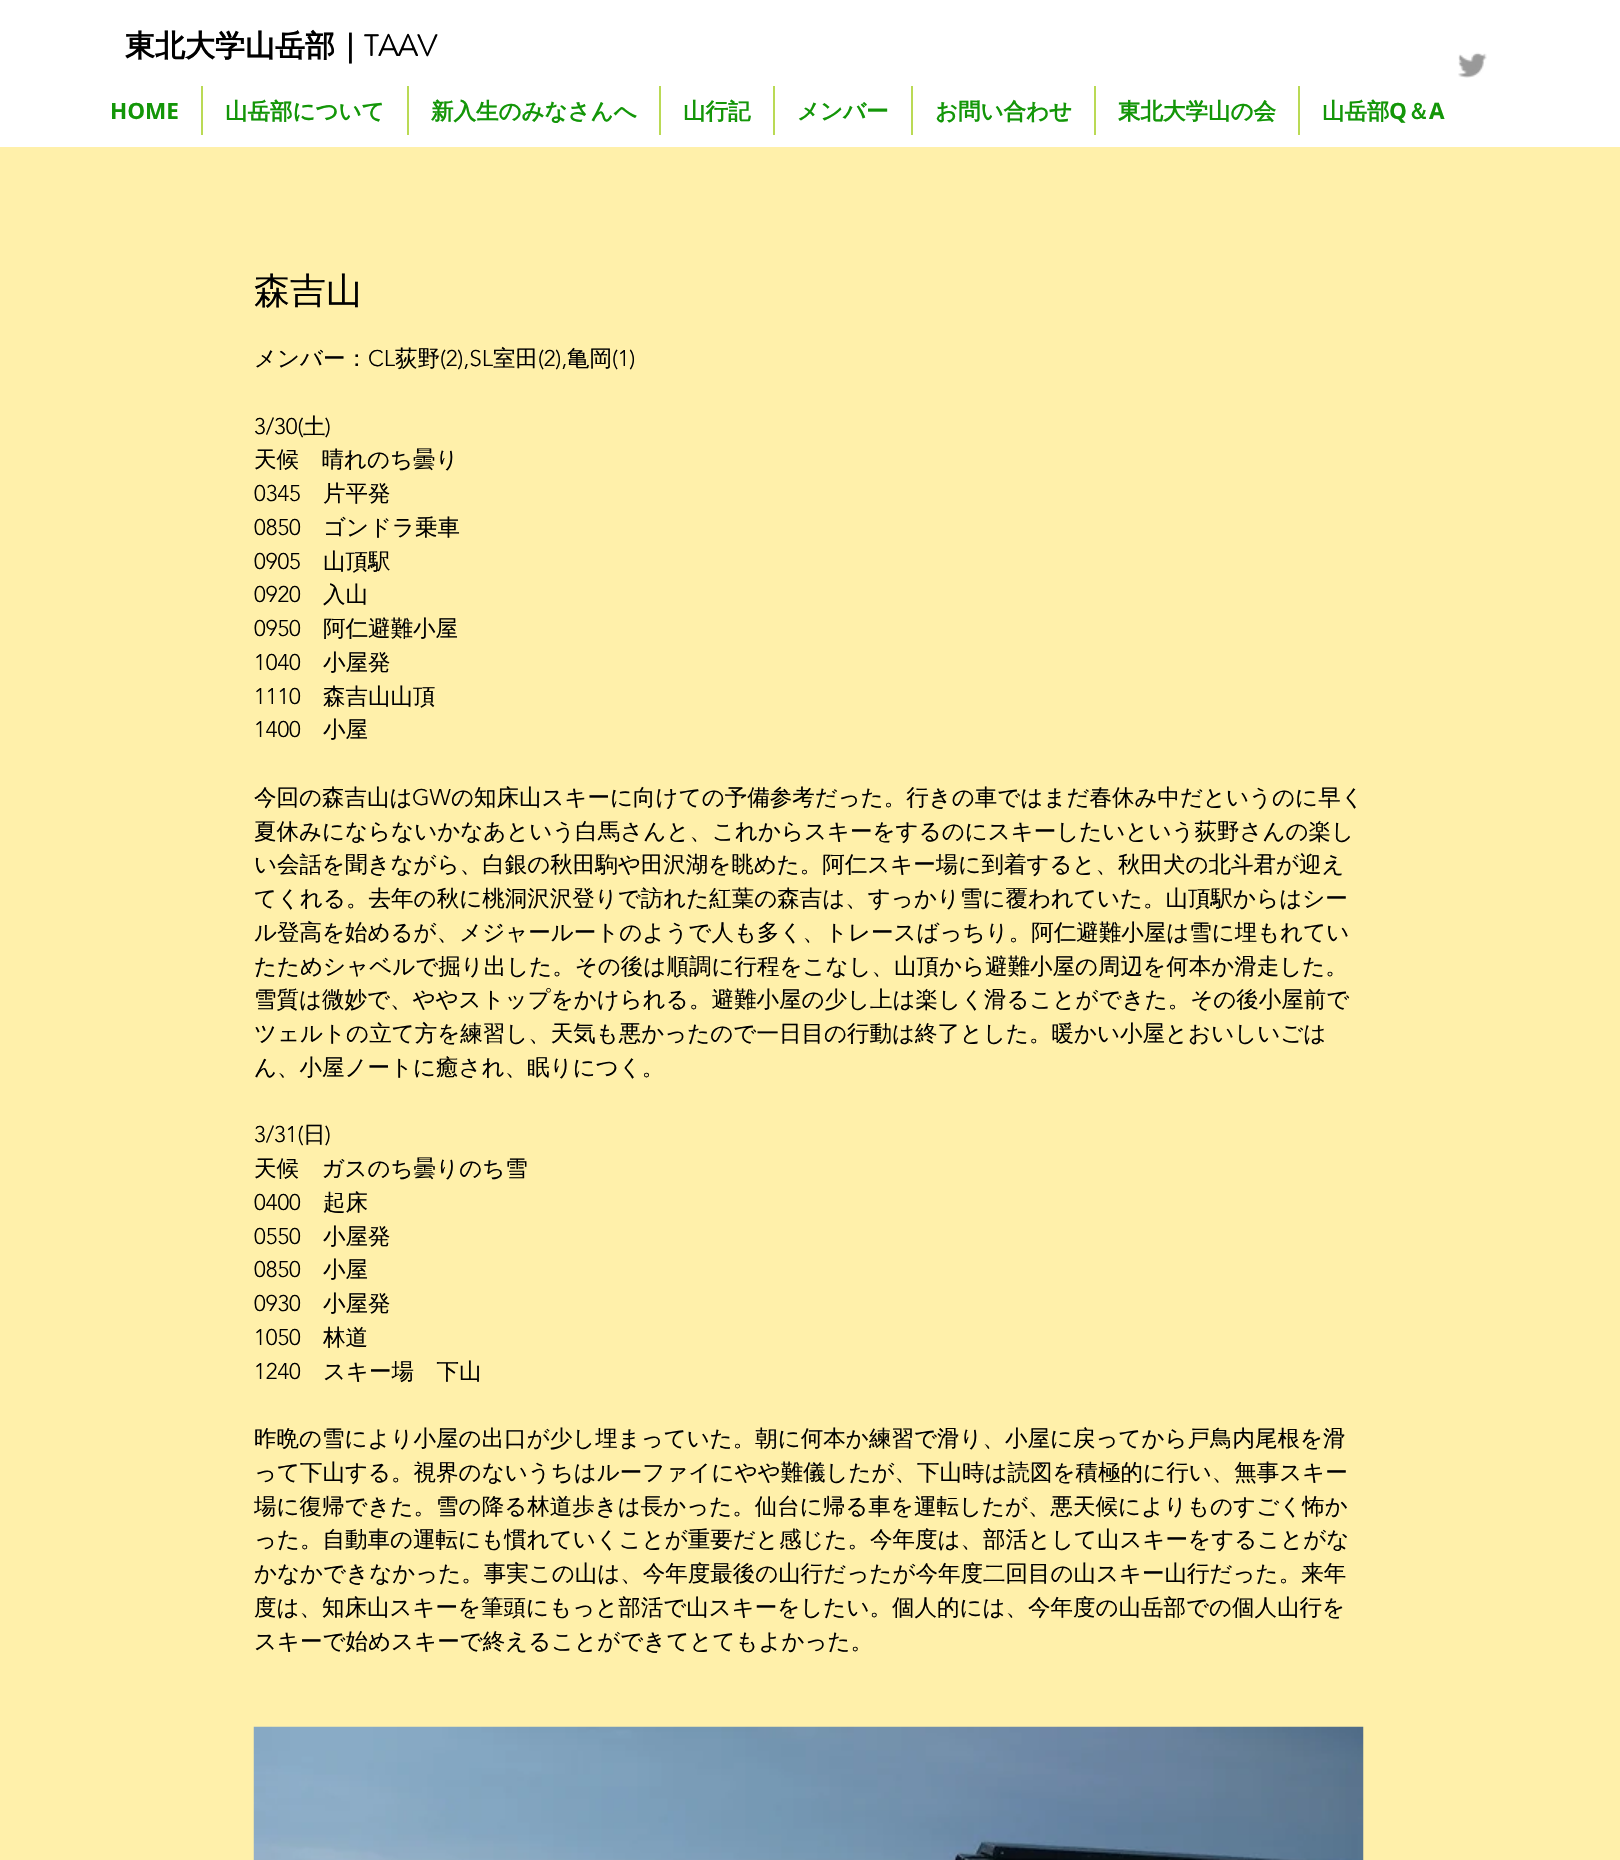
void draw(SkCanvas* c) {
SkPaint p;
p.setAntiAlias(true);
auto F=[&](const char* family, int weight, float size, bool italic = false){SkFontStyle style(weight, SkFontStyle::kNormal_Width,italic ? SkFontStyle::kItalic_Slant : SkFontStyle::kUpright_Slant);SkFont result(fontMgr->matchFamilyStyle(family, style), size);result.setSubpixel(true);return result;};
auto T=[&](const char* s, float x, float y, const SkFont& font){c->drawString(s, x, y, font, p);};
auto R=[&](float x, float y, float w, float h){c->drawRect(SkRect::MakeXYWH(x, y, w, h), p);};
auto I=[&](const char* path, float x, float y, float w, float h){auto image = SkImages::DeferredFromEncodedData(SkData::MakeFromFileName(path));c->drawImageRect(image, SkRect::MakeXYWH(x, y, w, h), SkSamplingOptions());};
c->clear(0xfffff0aa);
p.setColor(0xffffffff);
R(0,0,1620,147);
auto f1 = F("WenQuanYi Zen Hei",700,30);
p.setColor(0xff000000);
T("東北大学山岳部｜",125,56,f1);
auto f2 = F("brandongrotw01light",700,30);
T("TAAV",364,56,f2);
I("1.png",1458,52,29,26);
auto f3 = F("Open Sans",700,22.5);
p.setColor(0xff139608);
T("HOME",110,119,f3);
p.setColor(0xffbada55);
R(201,86,2,49);
auto f4 = F("WenQuanYi Zen Hei",700,22.5);
p.setColor(0xff139608);
T("山岳部について",225,119,f4);
p.setColor(0xffbada55);
R(407,86,2,49);
p.setColor(0xff139608);
T("新入生のみなさんへ",431,119,f4);
p.setColor(0xffbada55);
R(659,86,2,49);
p.setColor(0xff139608);
T("山行記",683,119,f4);
p.setColor(0xffbada55);
R(773,86,2,49);
p.setColor(0xff139608);
T("メンバー",797,119,f4);
p.setColor(0xffbada55);
R(911,86,2,49);
p.setColor(0xff139608);
T("お問い合わせ",935,119,f4);
p.setColor(0xffbada55);
R(1094,86,2,49);
p.setColor(0xff139608);
T("東北大学山の会",1118,119,f4);
p.setColor(0xffbada55);
R(1298,86,2,49);
p.setColor(0xff139608);
T("山岳部",1322,119,f4);
T("Q",1389,119,f3);
T("＆",1407,119,f4);
T("A",1429,119,f3);
auto f5 = F("WenQuanYi Zen Hei",500,36);
p.setColor(0xff000000);
T("森吉山",254,303,f5);
auto f6 = F("WenQuanYi Zen Hei",500,22.5);
T("メンバー：",254,366,f6);
auto f7 = F("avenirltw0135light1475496",300,22.5);
T("CL",368,366,f7);
T("荻野",395,366,f6);
T("(2),SL",440,366,f7);
T("室田",493,366,f6);
T("(2),",538,366,f7);
T("亀岡",567,366,f6);
T("(1)",612,366,f7);
T("3/30(",254,434,f7);
T("土",303,434,f6);
T(")",325,434,f7);
T("天候　晴れのち曇り",254,467,f6);
T("0345",254,501,f7);
T("片平発",323,501,f6);
T("0850",254,535,f7);
T("ゴンドラ乗車",323,535,f6);
T("0905",254,569,f7);
T("山頂駅",323,569,f6);
T("0920",254,602,f7);
T("入山",323,602,f6);
T("0950",254,636,f7);
T("阿仁避難小屋",323,636,f6);
T("1040",254,670,f7);
T("小屋発",323,670,f6);
T("1110",254,704,f7);
T("森吉山山頂",323,704,f6);
T("1400",254,737,f7);
T("小屋",323,737,f6);
T("今回の森吉山は",254,805,f6);
T("GW",412,805,f7);
T("の知床山スキーに向けての予備参考だった。行きの車ではまだ春休み中だというのに早く",451,805,f6);
T("夏休みにならないかなあという白馬さんと、これからスキーをするのにスキーしたいという荻野さんの楽し",254,839,f6);
T("い会話を聞きながら、白銀の秋田駒や田沢湖を眺めた。阿仁スキー場に到着すると、秋田犬の北斗君が迎え",254,872,f6);
T("てくれる。去年の秋に桃洞沢沢登りで訪れた紅葉の森吉は、すっかり雪に覆われていた。山頂駅からはシー",254,906,f6);
T("ル登高を始めるが、メジャールートのようで人も多く、トレースばっちり。阿仁避難小屋は雪に埋もれてい",254,940,f6);
T("たためシャベルで掘り出した。その後は順調に行程をこなし、山頂から避難小屋の周辺を何本か滑走した。",254,974,f6);
T("雪質は微妙で、ややストップをかけられる。避難小屋の少し上は楽しく滑ることができた。その後小屋前で",254,1007,f6);
T("ツェルトの立て方を練習し、天気も悪かったので一日目の行動は終了とした。暖かい小屋とおいしいごは",254,1041,f6);
T("ん、小屋ノートに癒され、眠りにつく。",254,1075,f6);
T("3/31(",254,1142,f7);
T("日",303,1142,f6);
T(")",325,1142,f7);
T("天候　ガスのち曇りのち雪",254,1176,f6);
T("0400",254,1210,f7);
T("起床",323,1210,f6);
T("0550",254,1244,f7);
T("小屋発",323,1244,f6);
T("0850",254,1277,f7);
T("小屋",323,1277,f6);
T("0930",254,1311,f7);
T("小屋発",323,1311,f6);
T("1050",254,1345,f7);
T("林道",323,1345,f6);
T("1240",254,1379,f7);
T("スキー場　下山",323,1379,f6);
T("昨晩の雪により小屋の出口が少し埋まっていた。朝に何本か練習で滑り、小屋に戻ってから戸鳥内尾根を滑",254,1446,f6);
T("って下山する。視界のないうちはルーファイにやや難儀したが、下山時は読図を積極的に行い、無事スキー",254,1480,f6);
T("場に復帰できた。雪の降る林道歩きは長かった。仙台に帰る車を運転したが、悪天候によりものすごく怖か",254,1514,f6);
T("った。自動車の運転にも慣れていくことが重要だと感じた。今年度は、部活として山スキーをすることがな",254,1547,f6);
T("かなかできなかった。事実この山は、今年度最後の山行だったが今年度二回目の山スキー山行だった。来年",254,1581,f6);
T("度は、知床山スキーを筆頭にもっと部活で山スキーをしたい。個人的には、今年度の山岳部での個人山行を",254,1615,f6);
T("スキーで始めスキーで終えることができてとてもよかった。",254,1649,f6);
I("2.png",253,1726,1111,134);
}
